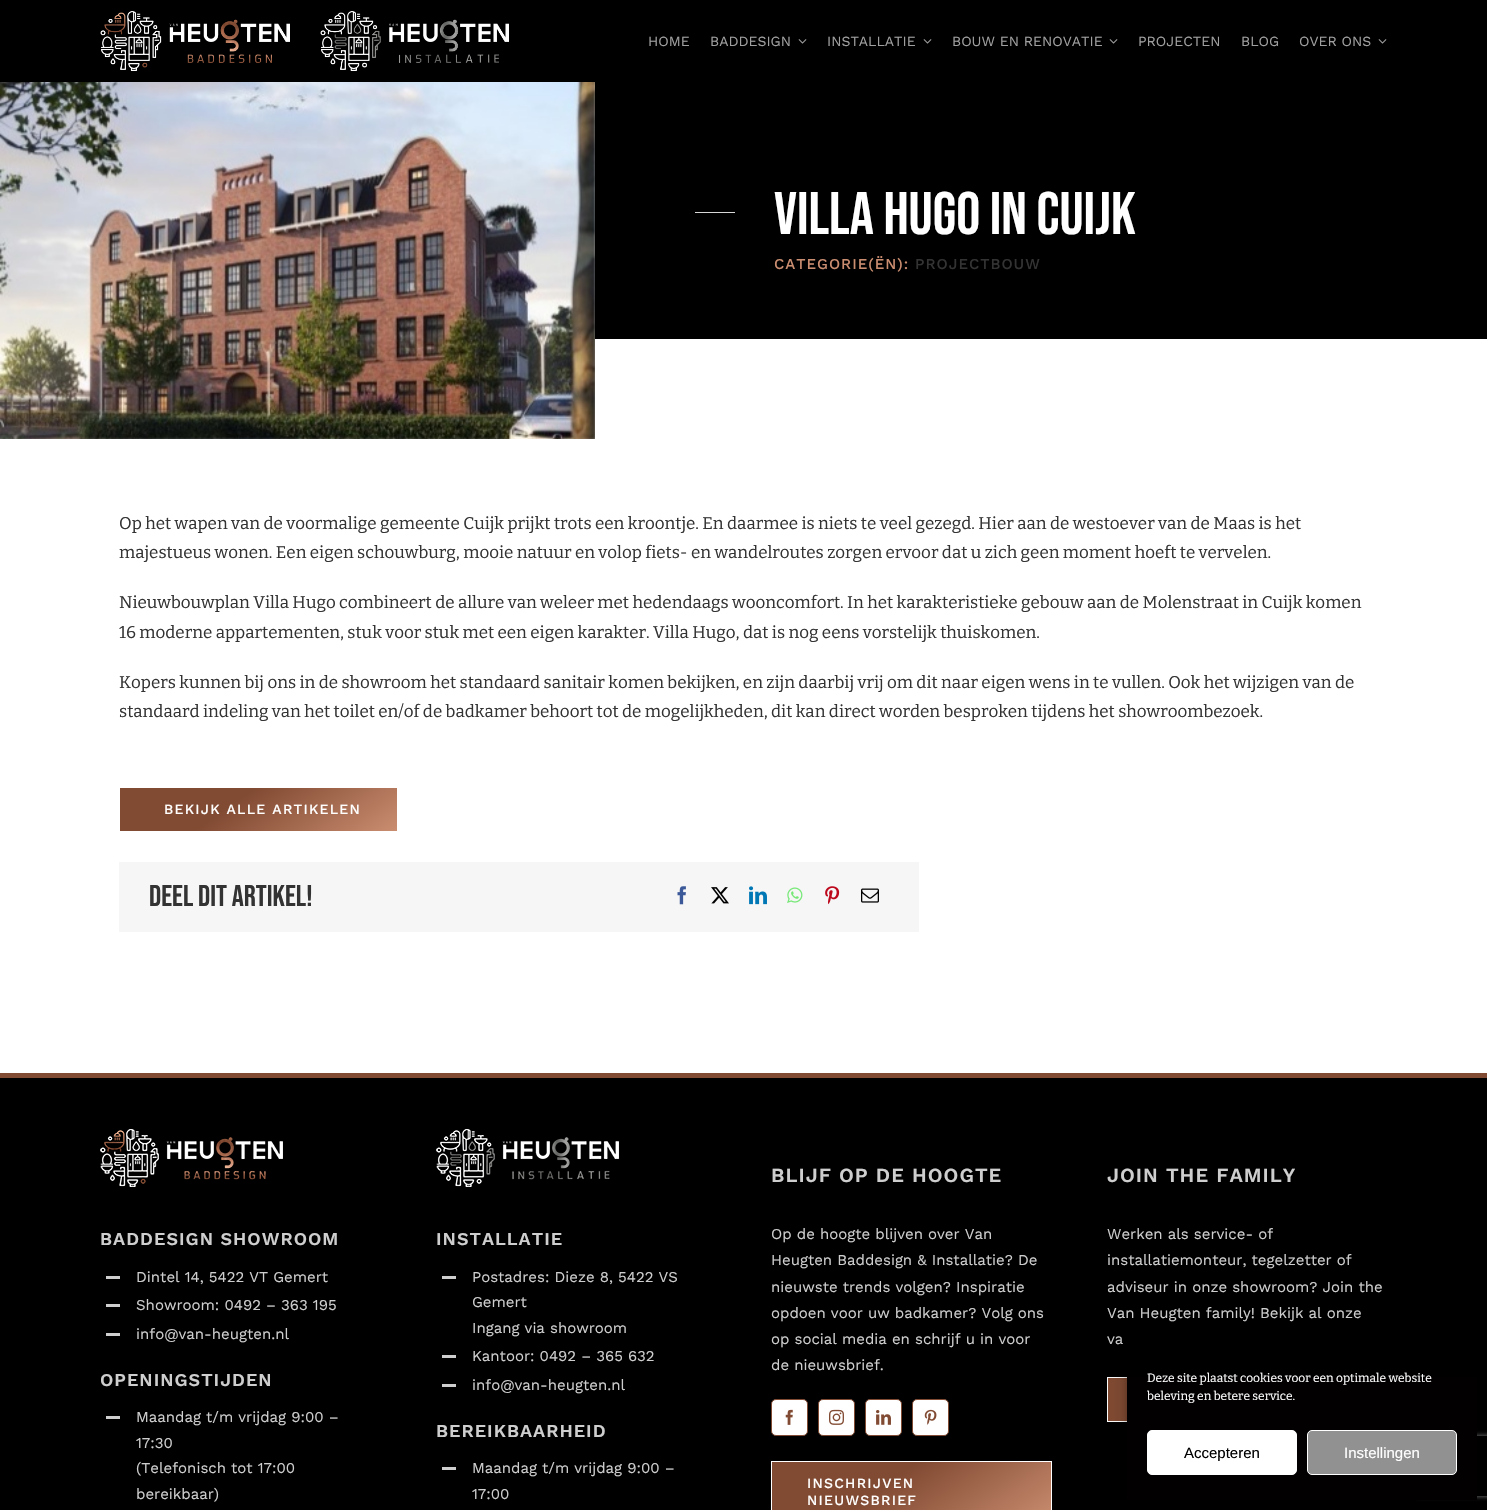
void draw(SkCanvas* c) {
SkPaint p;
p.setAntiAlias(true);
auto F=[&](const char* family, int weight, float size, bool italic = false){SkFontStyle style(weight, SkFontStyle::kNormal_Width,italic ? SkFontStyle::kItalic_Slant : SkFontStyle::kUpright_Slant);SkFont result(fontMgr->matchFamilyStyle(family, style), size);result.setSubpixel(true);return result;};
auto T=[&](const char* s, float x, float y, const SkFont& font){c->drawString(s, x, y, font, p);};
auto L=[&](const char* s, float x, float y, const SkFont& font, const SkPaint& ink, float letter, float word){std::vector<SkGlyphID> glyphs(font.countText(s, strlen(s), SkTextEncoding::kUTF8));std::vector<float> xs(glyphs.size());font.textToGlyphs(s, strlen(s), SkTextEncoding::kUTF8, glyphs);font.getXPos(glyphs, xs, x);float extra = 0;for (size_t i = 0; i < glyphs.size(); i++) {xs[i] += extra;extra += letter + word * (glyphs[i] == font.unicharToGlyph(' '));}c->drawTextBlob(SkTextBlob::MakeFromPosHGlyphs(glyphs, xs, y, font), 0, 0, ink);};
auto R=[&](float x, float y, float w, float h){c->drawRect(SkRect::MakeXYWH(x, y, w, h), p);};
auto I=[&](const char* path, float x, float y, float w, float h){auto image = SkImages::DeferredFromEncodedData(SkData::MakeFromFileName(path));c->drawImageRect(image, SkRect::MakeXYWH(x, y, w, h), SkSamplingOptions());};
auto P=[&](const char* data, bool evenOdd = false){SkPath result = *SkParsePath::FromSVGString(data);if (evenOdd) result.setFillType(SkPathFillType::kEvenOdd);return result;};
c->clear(0xffffffff);
p.setColor(0xff000000);
R(0,0,1487,82);
I("1.png",100,11,190,60);
I("2.png",320,11,189,60);
auto f1 = F("Work Sans",400,14);
p.setColor(0xffa0a0a0);
T("HOME",648,46,f1);
T("BADDESIGN",710,46,f1);
I("3.png",798,39,9,5);
T("INSTALLATIE",827,46,f1);
I("3.png",923,39,9,5);
T("BOUW EN RENOVATIE",952,46,f1);
I("3.png",1109,39,9,5);
T("PROJECTEN",1138,46,f1);
T("BLOG",1241,46,f1);
T("OVER ONS",1299,46,f1);
I("3.png",1378,39,9,5);
I("4.png",0,82,595,357);
p.setColor(0xff000000);
R(595,82,892,257);
p.setColor(0xffd6d6d6);
R(695,212,40,1);
auto f2 = F("Bebas Neue",400,60);
p.setColor(0xffffffff);
T("Villa Hugo in Cuijk",774,234,f2);
auto f3 = F("Work Sans",500,15);
p.setColor(0xffca8d70);
L("CATEGORIE(ËN):",774,269,f3,p,1,0);
p.setColor(0xff333333);
L("PROJECTBOUW",915,269,f3,p,1,0);
auto f4 = F("Bitter",400,17);
T("Op het wapen van de voormalige gemeente Cuijk prijkt trots een kroontje. En daarmee is niets te veel gezegd. Hier aan de westoever van de Maas is het",119,529,f4);
T("majestueus wonen. Een eigen schouwburg, mooie natuur en volop fiets- en wandelroutes zorgen ervoor dat u zich geen moment hoeft te vervelen.",119,558,f4);
T("Nieuwbouwplan Villa Hugo combineert de allure van weleer met hedendaags wooncomfort. In het karakteristieke gebouw aan de Molenstraat in Cuijk komen",119,608,f4);
T("16 moderne appartementen, stuk voor stuk met een eigen karakter. Villa Hugo, dat is nog eens vorstelijk thuiskomen.",119,638,f4);
T("Kopers kunnen bij ons in de showroom het standaard sanitair komen bekijken, en zijn daarbij vrij om dit naar eigen wens in te vullen. Ook het wijzigen van de",119,688,f4);
T("standaard indeling van het toilet en/of de badkamer behoort tot de mogelijkheden, dit kan direct worden besproken tijdens het showroombezoek.",119,717,f4);
{
const SkColor colors[] = {0xff814a32,0xffca8d70};
const float stops[] = {.4,1};
const SkPoint ends[] = {{203,730}, {314,889}};
p.setShader(SkGradientShader::MakeLinear(ends, colors, stops, 2, SkTileMode::kClamp));
p.setAlpha(255);
}
R(120,788,277,43);
auto f5 = F("Work Sans",500,14);
p.setShader(nullptr);
p.setColor(0xffffffff);
L("BEKIJK ALLE ARTIKELEN",164,814,f5,p,1.25,0);
p.setColor(0xfff6f6f6);
R(119,862,800,70);
auto f6 = F("Bebas Neue",400,30);
p.setColor(0xff333333);
T("Deel dit artikel!",149,906,f6);
I("5.png",677,886,9,19);
I("6.png",711,887,18,17);
I("7.png",749,886,18,19);
I("8.png",787,887,16,16);
I("9.png",825,886,15,19);
I("10.png",861,888,18,15);
p.setColor(0xff000000);
R(0,1078,1487,432);
p.setColor(0xff814a32);
R(0,1073,1487,5);
I("11.png",100,1129,183,58);
auto f7 = F("Work Sans",600,18);
p.setColor(0xffcecece);
L("BADDESIGN SHOWROOM",100,1245,f7,p,1,0);
R(106,1276,14,3);
auto f8 = F("Work Sans",400,15);
T("Dintel 14, 5422 VT Gemert",136,1282,f8);
R(106,1304,14,3);
T("Showroom: 0492 – 363 195",136,1310,f8);
R(106,1333,14,3);
T("info@van-heugten.nl",136,1339,f8);
L("OPENINGSTIJDEN",100,1386,f7,p,1,0);
R(106,1416,14,3);
T("Maandag t/m vrijdag 9:00 –",136,1422,f8);
T("17:30",136,1448,f8);
T("(Telefonisch tot 17:00",136,1473,f8);
T("bereikbaar)",136,1499,f8);
I("12.png",436,1129,183,58);
L("INSTALLATIE",436,1245,f7,p,1,0);
R(442,1276,14,3);
T("Postadres: Dieze 8, 5422 VS",472,1282,f8);
T("Gemert",472,1307,f8);
T("Ingang via showroom",472,1333,f8);
R(442,1355,14,3);
T("Kantoor: 0492 – 365 632",472,1361,f8);
R(442,1384,14,3);
T("info@van-heugten.nl",472,1390,f8);
L("BEREIKBAARHEID",436,1437,f7,p,1,0);
R(442,1467,14,3);
T("Maandag t/m vrijdag 9:00 –",472,1473,f8);
T("17:00",472,1499,f8);
auto f9 = F("Work Sans",600,20);
L("BLIJF OP DE HOOGTE",771,1182,f9,p,1,0);
T("Op de hoogte blijven over Van",771,1239,f8);
T("Heugten Baddesign & Installatie? De",771,1265,f8);
T("nieuwste trends volgen? Inspiratie",771,1292,f8);
T("opdoen voor uw badkamer? Volg ons",771,1318,f8);
T("op social media en schrijf u in voor",771,1344,f8);
T("de nieuwsbrief.",771,1370,f8);
p.setColor(0xffffffff);
c->drawRoundRect(SkRect::MakeXYWH(771.5,1399.5,36,36),4.5,4.5,p);
p.setStroke(true);
p.setStrokeWidth(1);
p.setColor(0xff814a32);
c->drawRoundRect(SkRect::MakeXYWH(771.5,1399.5,36,36),4.5,4.5,p);
I("13.png",785,1409,8,16);
p.setStroke(false);
p.setColor(0xffffffff);
c->drawRoundRect(SkRect::MakeXYWH(818.5,1399.5,36,36),4.5,4.5,p);
p.setStroke(true);
p.setColor(0xff814a32);
c->drawRoundRect(SkRect::MakeXYWH(818.5,1399.5,36,36),4.5,4.5,p);
I("14.png",829,1409,15,16);
p.setStroke(false);
p.setColor(0xffffffff);
c->drawRoundRect(SkRect::MakeXYWH(865.5,1399.5,36,36),4.5,4.5,p);
p.setStroke(true);
p.setColor(0xff814a32);
c->drawRoundRect(SkRect::MakeXYWH(865.5,1399.5,36,36),4.5,4.5,p);
I("15.png",876,1410,15,15);
p.setStroke(false);
p.setColor(0xffffffff);
c->drawRoundRect(SkRect::MakeXYWH(912.5,1399.5,36,36),4.5,4.5,p);
p.setStroke(true);
p.setColor(0xff814a32);
c->drawRoundRect(SkRect::MakeXYWH(912.5,1399.5,36,36),4.5,4.5,p);
I("16.png",924,1409,13,16);
p.setStroke(false);
{
const SkColor colors[] = {0xff814a32,0xffca8d70};
const float stops[] = {.4,1};
const SkPoint ends[] = {{852,1406}, {971,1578}};
p.setShader(SkGradientShader::MakeLinear(ends, colors, stops, 2, SkTileMode::kClamp));
p.setAlpha(255);
}
R(772,1462,279,48);
p.setStroke(true);
p.setShader(nullptr);
p.setColor(0xffffffff);
c->drawRect(SkRect::MakeXYWH(771.5,1461.5,280,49),p);
p.setStroke(false);
L("INSCHRIJVEN",807,1488,f5,p,1.25,0);
L("NIEUWSBRIEF",807,1505,f5,p,1.25,0);
p.setColor(0xffcecece);
L("JOIN THE FAMILY",1107,1182,f9,p,1,0);
T("Werken als service- of",1107,1239,f8);
T("installatiemonteur, tegelzetter of",1107,1265,f8);
T("adviseur in onze showroom? Join the",1107,1292,f8);
T("Van Heugten family! Bekijk al onze",1107,1318,f8);
T("va",1107,1344,f8);
{
const SkColor colors[] = {0xff814a32,0xffca8d70};
const float stops[] = {.4,1};
const SkPoint ends[] = {{1189,1321}, {1300,1478}};
p.setShader(SkGradientShader::MakeLinear(ends, colors, stops, 2, SkTileMode::kClamp));
p.setAlpha(255);
}
R(1108,1378,19,43);
p.setStroke(true);
p.setShader(nullptr);
p.setColor(0xffffffff);
c->drawRect(SkRect::MakeXYWH(1107.5,1377.5,274,44),p);
p.setStroke(false);
p.setColor(0x3b000000);
p.setMaskFilter(SkMaskFilter::MakeBlur(kNormal_SkBlurStyle, 3));
c->drawRect(SkRect::MakeXYWH(1127,1340,350,166),p);
p.setMaskFilter(nullptr);
p.setColor(0x30000000);
p.setMaskFilter(SkMaskFilter::MakeBlur(kNormal_SkBlurStyle, 10));
c->drawRect(SkRect::MakeXYWH(1127,1344,350,166),p);
p.setMaskFilter(nullptr);
c->save();
c->clipPath(P("M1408 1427h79v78h-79zm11 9h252c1 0 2 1 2 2v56c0 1-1 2-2 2h-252c-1 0-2-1-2-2v-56c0-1 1-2 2-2z",true),true);
p.setColor(0xff808080);
p.setMaskFilter(SkMaskFilter::MakeBlur(kNormal_SkBlurStyle, 2.5));
c->drawRoundRect(SkRect::MakeXYWH(1417,1436,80,60),2,2,p);
p.setMaskFilter(nullptr);
c->restore();
p.setColor(0xff020000);
R(1127,1377,350,123);
auto f10 = F("Bitter",400,12);
p.setColor(0xffffffff);
T("Deze site plaatst cookies voor een optimale website",1147,1382,f10);
T("beleving en betere service.",1147,1400,f10);
c->drawRoundRect(SkRect::MakeXYWH(1147.5,1430.5,149,44),4.5,4.5,p);
p.setStroke(true);
c->drawRoundRect(SkRect::MakeXYWH(1147.5,1430.5,149,44),4.5,4.5,p);
auto f11 = F("Liberation Sans",400,15);
p.setStroke(false);
p.setColor(0xff000000);
T("Accepteren",1184,1458,f11);
p.setColor(0xff919191);
c->drawRoundRect(SkRect::MakeXYWH(1307.5,1430.5,149,44),4.5,4.5,p);
p.setStroke(true);
p.setColor(0xffffffff);
c->drawRoundRect(SkRect::MakeXYWH(1307.5,1430.5,149,44),4.5,4.5,p);
p.setStroke(false);
T("Instellingen",1344,1458,f11);
}
